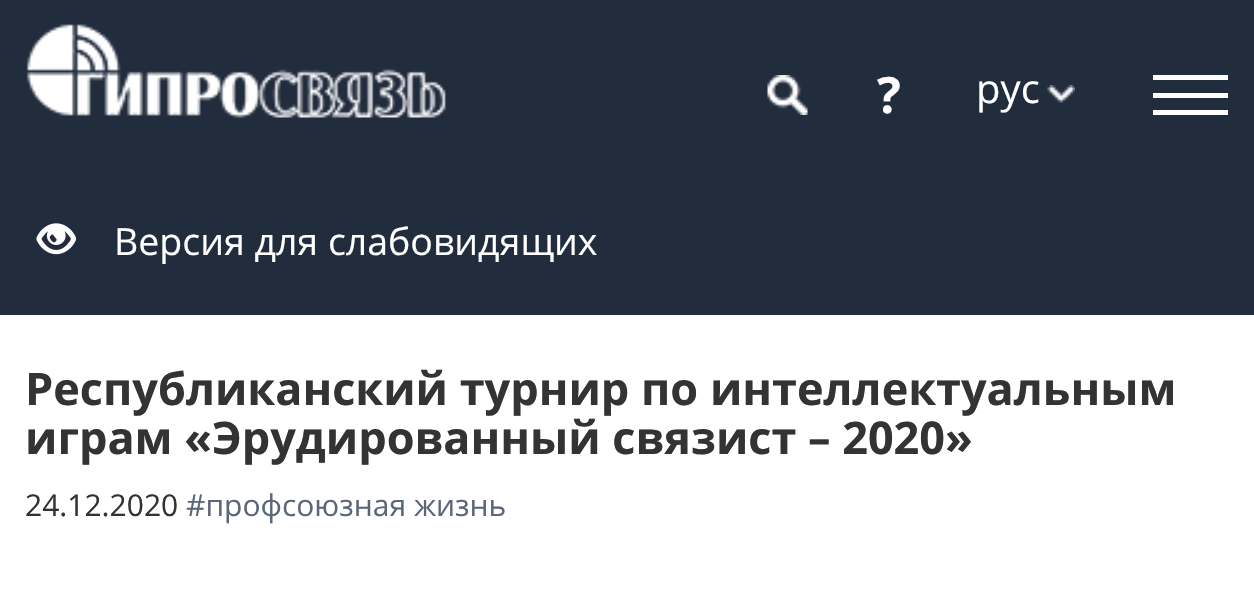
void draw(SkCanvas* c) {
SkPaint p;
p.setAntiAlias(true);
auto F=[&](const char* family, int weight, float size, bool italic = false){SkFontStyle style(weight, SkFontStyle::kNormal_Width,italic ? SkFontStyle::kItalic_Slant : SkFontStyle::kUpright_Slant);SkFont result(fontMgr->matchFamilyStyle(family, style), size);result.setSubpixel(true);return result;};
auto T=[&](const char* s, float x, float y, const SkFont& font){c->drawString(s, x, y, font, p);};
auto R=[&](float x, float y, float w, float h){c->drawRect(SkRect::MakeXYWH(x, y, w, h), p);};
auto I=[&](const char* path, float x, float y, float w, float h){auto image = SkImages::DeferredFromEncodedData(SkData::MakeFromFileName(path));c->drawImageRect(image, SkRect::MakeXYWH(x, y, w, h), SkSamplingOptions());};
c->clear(0xffffffff);
p.setColor(0xff212c3d);
R(0,0,1254,315);
I("1.png",26,24,420,94);
I("2.png",767,75,41,40);
auto f1 = F("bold",700,50);
p.setColor(0xffffffff);
T("?",877,113,f1);
auto f2 = F("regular",400,40);
T("рус",976,103,f2);
I("3.png",1047,85,28,18);
R(1153,75,75,5);
R(1153,93,75,5);
R(1153,110,75,5);
I("4.png",36,223,41,32);
auto f3 = F("regular",400,37.5);
T("Версия для слабовидящих",114,255,f3);
auto f4 = F("bold",700,45);
p.setColor(0xff333333);
T("Республиканский турнир по интеллектуальным",25,405,f4);
T("играм «Эрудированный связист – 2020»",25,454,f4);
auto f5 = F("regular",400,30);
T("24.12.2020",25,516,f5);
p.setColor(0xff5b6678);
T("#профсоюзная жизнь",186,516,f5);
}
